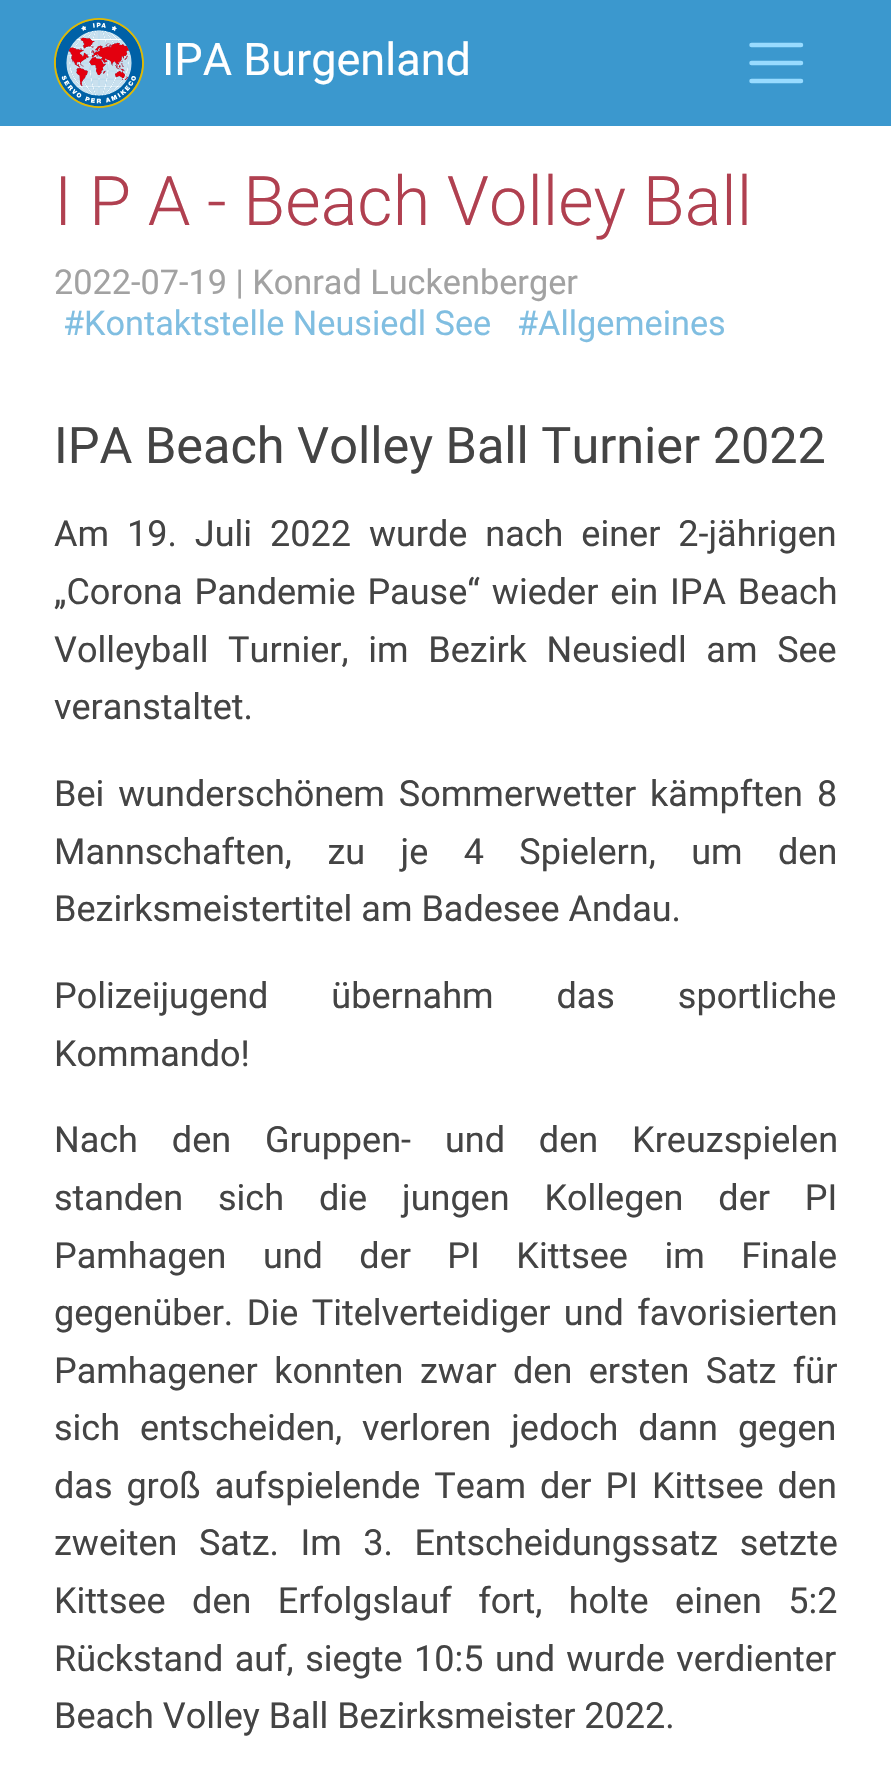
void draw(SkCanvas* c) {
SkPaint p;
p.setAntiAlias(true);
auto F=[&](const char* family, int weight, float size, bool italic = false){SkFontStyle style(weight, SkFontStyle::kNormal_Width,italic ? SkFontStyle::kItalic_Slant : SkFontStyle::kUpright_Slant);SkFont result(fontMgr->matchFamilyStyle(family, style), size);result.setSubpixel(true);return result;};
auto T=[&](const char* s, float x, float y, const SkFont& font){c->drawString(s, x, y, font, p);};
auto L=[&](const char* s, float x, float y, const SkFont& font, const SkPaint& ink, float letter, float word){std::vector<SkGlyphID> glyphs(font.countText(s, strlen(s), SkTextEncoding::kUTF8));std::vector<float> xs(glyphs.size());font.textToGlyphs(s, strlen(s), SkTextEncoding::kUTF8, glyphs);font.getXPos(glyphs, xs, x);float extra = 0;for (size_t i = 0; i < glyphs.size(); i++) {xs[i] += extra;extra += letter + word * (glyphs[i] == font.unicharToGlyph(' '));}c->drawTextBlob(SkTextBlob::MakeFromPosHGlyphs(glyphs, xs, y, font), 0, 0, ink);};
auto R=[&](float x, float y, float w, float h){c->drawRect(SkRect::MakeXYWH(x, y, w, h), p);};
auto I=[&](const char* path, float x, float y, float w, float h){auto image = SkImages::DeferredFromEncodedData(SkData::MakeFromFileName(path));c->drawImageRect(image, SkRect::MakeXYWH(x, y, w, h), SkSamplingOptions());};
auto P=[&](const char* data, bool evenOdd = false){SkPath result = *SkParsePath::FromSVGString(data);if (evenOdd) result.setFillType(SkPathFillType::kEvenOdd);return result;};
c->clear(0xffffffff);
p.setColor(0xff3b98ce);
R(0,0,891,126);
I("1.png",54,18,90,90);
auto f1 = F("Roboto",400,45);
p.setColor(0xffffffff);
T("IPA Burgenland",162,75,f1);
p.setStroke(true);
p.setStrokeWidth(4.5);
p.setStrokeCap(SkPaint::kRound_Cap);
p.setColor(0xff98dbff);
c->drawPath(P("M751.5 45h49.5m-49.5 18h49.5m-49.5 18h49.5"),p);
auto f2 = F("Roboto",300,68.4);
p.setStroke(false);
p.setColor(0xffb04050);
T("I P A - Beach Volley Ball",54,225,f2);
auto f3 = F("Roboto",400,34.25);
p.setColor(0xffa2a2a2);
T("2022-07-19 | Konrad Luckenberger",54,294,f3);
p.setColor(0xff80bee1);
T("#Kontaktstelle Neusiedl See",63,335,f3);
T("#Allgemeines",517,335,f3);
auto f4 = F("Roboto",400,50.4);
p.setColor(0xff444444);
T("IPA Beach Volley Ball Turnier 2022",54,463,f4);
auto f5 = F("Roboto",400,36);
L("Am 19. Juli 2022 wurde nach einer 2-jährigen",54,546,f5,p,0,9);
L("„Corona Pandemie Pause“ wieder ein IPA Beach",54,604,f5,p,0,3);
L("Volleyball Turnier, im Bezirk Neusiedl am See",54,662,f5,p,0,10.75);
T("veranstaltet.",54,719,f5);
L("Bei wunderschönem Sommerwetter kämpften 8",54,806,f5,p,0,5);
L("Mannschaften, zu je 4 Spielern, um den",54,864,f5,p,0,26.5);
T("Bezirksmeistertitel am Badesee Andau.",54,921,f5);
L("Polizeijugend übernahm das sportliche",54,1008,f5,p,0,54);
T("Kommando!",54,1066,f5);
L("Nach den Gruppen- und den Kreuzspielen",54,1152,f5,p,0,25);
L("standen sich die jungen Kollegen der PI",54,1210,f5,p,0,26);
L("Pamhagen und der PI Kittsee im Finale",54,1268,f5,p,0,27.5);
L("gegenüber. Die Titelverteidiger und favorisierten",54,1325,f5,p,0,4.5);
L("Pamhagener konnten zwar den ersten Satz für",54,1383,f5,p,0,7.5);
L("sich entscheiden, verloren jedoch dann gegen",54,1440,f5,p,0,11);
L("das groß aufspielende Team der PI Kittsee den",54,1498,f5,p,0,5);
L("zweiten Satz. Im 3. Entscheidungssatz setzte",54,1555,f5,p,0,12.5);
L("Kittsee den Erfolgslauf fort, holte einen 5:2",54,1613,f5,p,0,17.5);
L("Rückstand auf, siegte 10:5 und wurde verdienter",54,1671,f5,p,0,2.5);
T("Beach Volley Ball Bezirksmeister 2022.",54,1728,f5);
}
